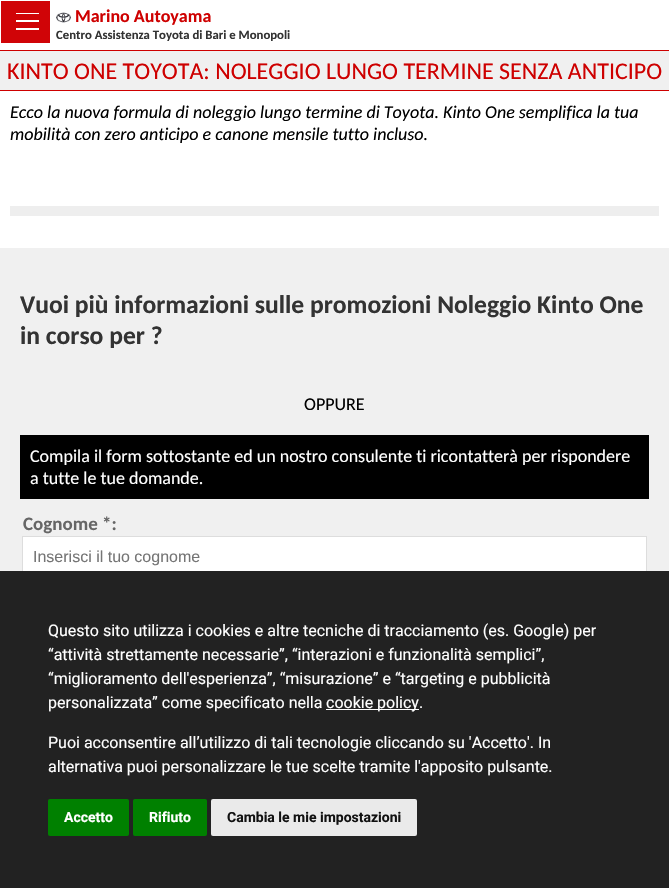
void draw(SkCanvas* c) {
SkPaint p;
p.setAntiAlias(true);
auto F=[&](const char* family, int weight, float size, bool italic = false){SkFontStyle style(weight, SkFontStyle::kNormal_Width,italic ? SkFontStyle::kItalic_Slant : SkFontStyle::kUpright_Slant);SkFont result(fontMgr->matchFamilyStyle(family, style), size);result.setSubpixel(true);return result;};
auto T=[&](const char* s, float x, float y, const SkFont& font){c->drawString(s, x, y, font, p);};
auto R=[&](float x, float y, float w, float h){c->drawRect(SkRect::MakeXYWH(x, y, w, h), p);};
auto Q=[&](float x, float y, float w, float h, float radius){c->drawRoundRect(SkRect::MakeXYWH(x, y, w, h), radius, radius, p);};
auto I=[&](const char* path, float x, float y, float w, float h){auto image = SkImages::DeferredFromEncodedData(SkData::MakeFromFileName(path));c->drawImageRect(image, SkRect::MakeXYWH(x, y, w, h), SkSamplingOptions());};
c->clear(0xffffffff);
p.setColor(0xffd00407);
R(1,1,49,42);
p.setColor(0xffffffff);
R(16,13,23,1);
R(16,20,23,2);
R(16,28,23,2);
I("1.png",56,12,15,11);
auto f1 = F("Carlito",700,18);
p.setColor(0xffce0000);
T("Marino Autoyama",75,22,f1);
auto f2 = F("Carlito",700,12.75);
p.setColor(0xff333333);
T("Centro Assistenza Toyota di Bari e Monopoli",56,39,f2);
p.setColor(0xfff0f0f0);
R(0,51,669,39);
p.setColor(0xffce0000);
R(0,50,669,1);
R(0,90,669,1);
auto f3 = F("Carlito",400,24);
T("KINTO ONE TOYOTA: NOLEGGIO LUNGO TERMINE SENZA ANTICIPO",7,79,f3);
auto f4 = F("Carlito",400,18,true);
p.setColor(0xff000000);
T("Ecco la nuova formula di noleggio lungo termine di Toyota. Kinto One semplifica la tua",10,118,f4);
T("mobilità con zero anticipo e canone mensile tutto incluso.",10,140,f4);
p.setColor(0xffeeeeee);
R(10,206,649,10);
p.setColor(0xfff0f0f0);
R(0,248,669,323);
auto f5 = F("Carlito",700,25.6);
p.setColor(0xff333333);
T("Vuoi più informazioni sulle promozioni Noleggio Kinto One",20,313,f5);
T("in corso per ?",20,344,f5);
auto f6 = F("Carlito",400,18);
p.setColor(0xff000000);
T("OPPURE",304,410,f6);
R(20,435,629,64);
p.setColor(0xffffffff);
T("Compila il form sottostante ed un nostro consulente ti ricontatterà per rispondere",30,462,f6);
T("a tutte le tue domande.",30,484,f6);
auto f7 = F("Carlito",700,19);
p.setColor(0xff666666);
T("Cognome *:",23,530,f7);
p.setStroke(true);
p.setStrokeWidth(1);
p.setColor(0xffdddddd);
c->drawRect(SkRect::MakeXYWH(22.5,536.5,624,41),p);
p.setStroke(false);
p.setColor(0xffffffff);
R(23,537,623,34);
auto f8 = F("Liberation Sans",400,16);
p.setColor(0xff757575);
T("Inserisci il tuo cognome",33,562,f8);
p.setColor(0xff222222);
R(0,571,669,317);
auto f9 = F("Roboto",400,16);
p.setColor(0xffffffff);
T("Questo sito utilizza i cookies e altre tecniche di tracciamento (es. Google) per",48,636,f9);
T("“attività strettamente necessarie”, “interazioni e funzionalità semplici”,",48,660,f9);
T("“miglioramento dell'esperienza”, “misurazione” e “targeting e pubblicità",48,684,f9);
T("personalizzata” come specificato nella",48,708,f9);
R(326,709,93,1);
T("cookie policy.",326,708,f9);
T("Puoi acconsentire all’utilizzo di tali tecnologie cliccando su 'Accetto'. In",48,748,f9);
T("alternativa puoi personalizzare le tue scelte tramite l'apposito pulsante.",48,772,f9);
p.setColor(0xff008000);
Q(48,799,81,37,2);
auto f10 = F("Roboto",700,14);
p.setColor(0xffffffff);
T("Accetto",64,822,f10);
p.setColor(0xff008000);
Q(133,799,74,37,2);
p.setColor(0xffffffff);
T("Rifiuto",149,822,f10);
p.setColor(0xffeaeaea);
Q(211,799,206,37,2);
p.setColor(0xff111111);
T("Cambia le mie impostazioni",227,822,f10);
}
